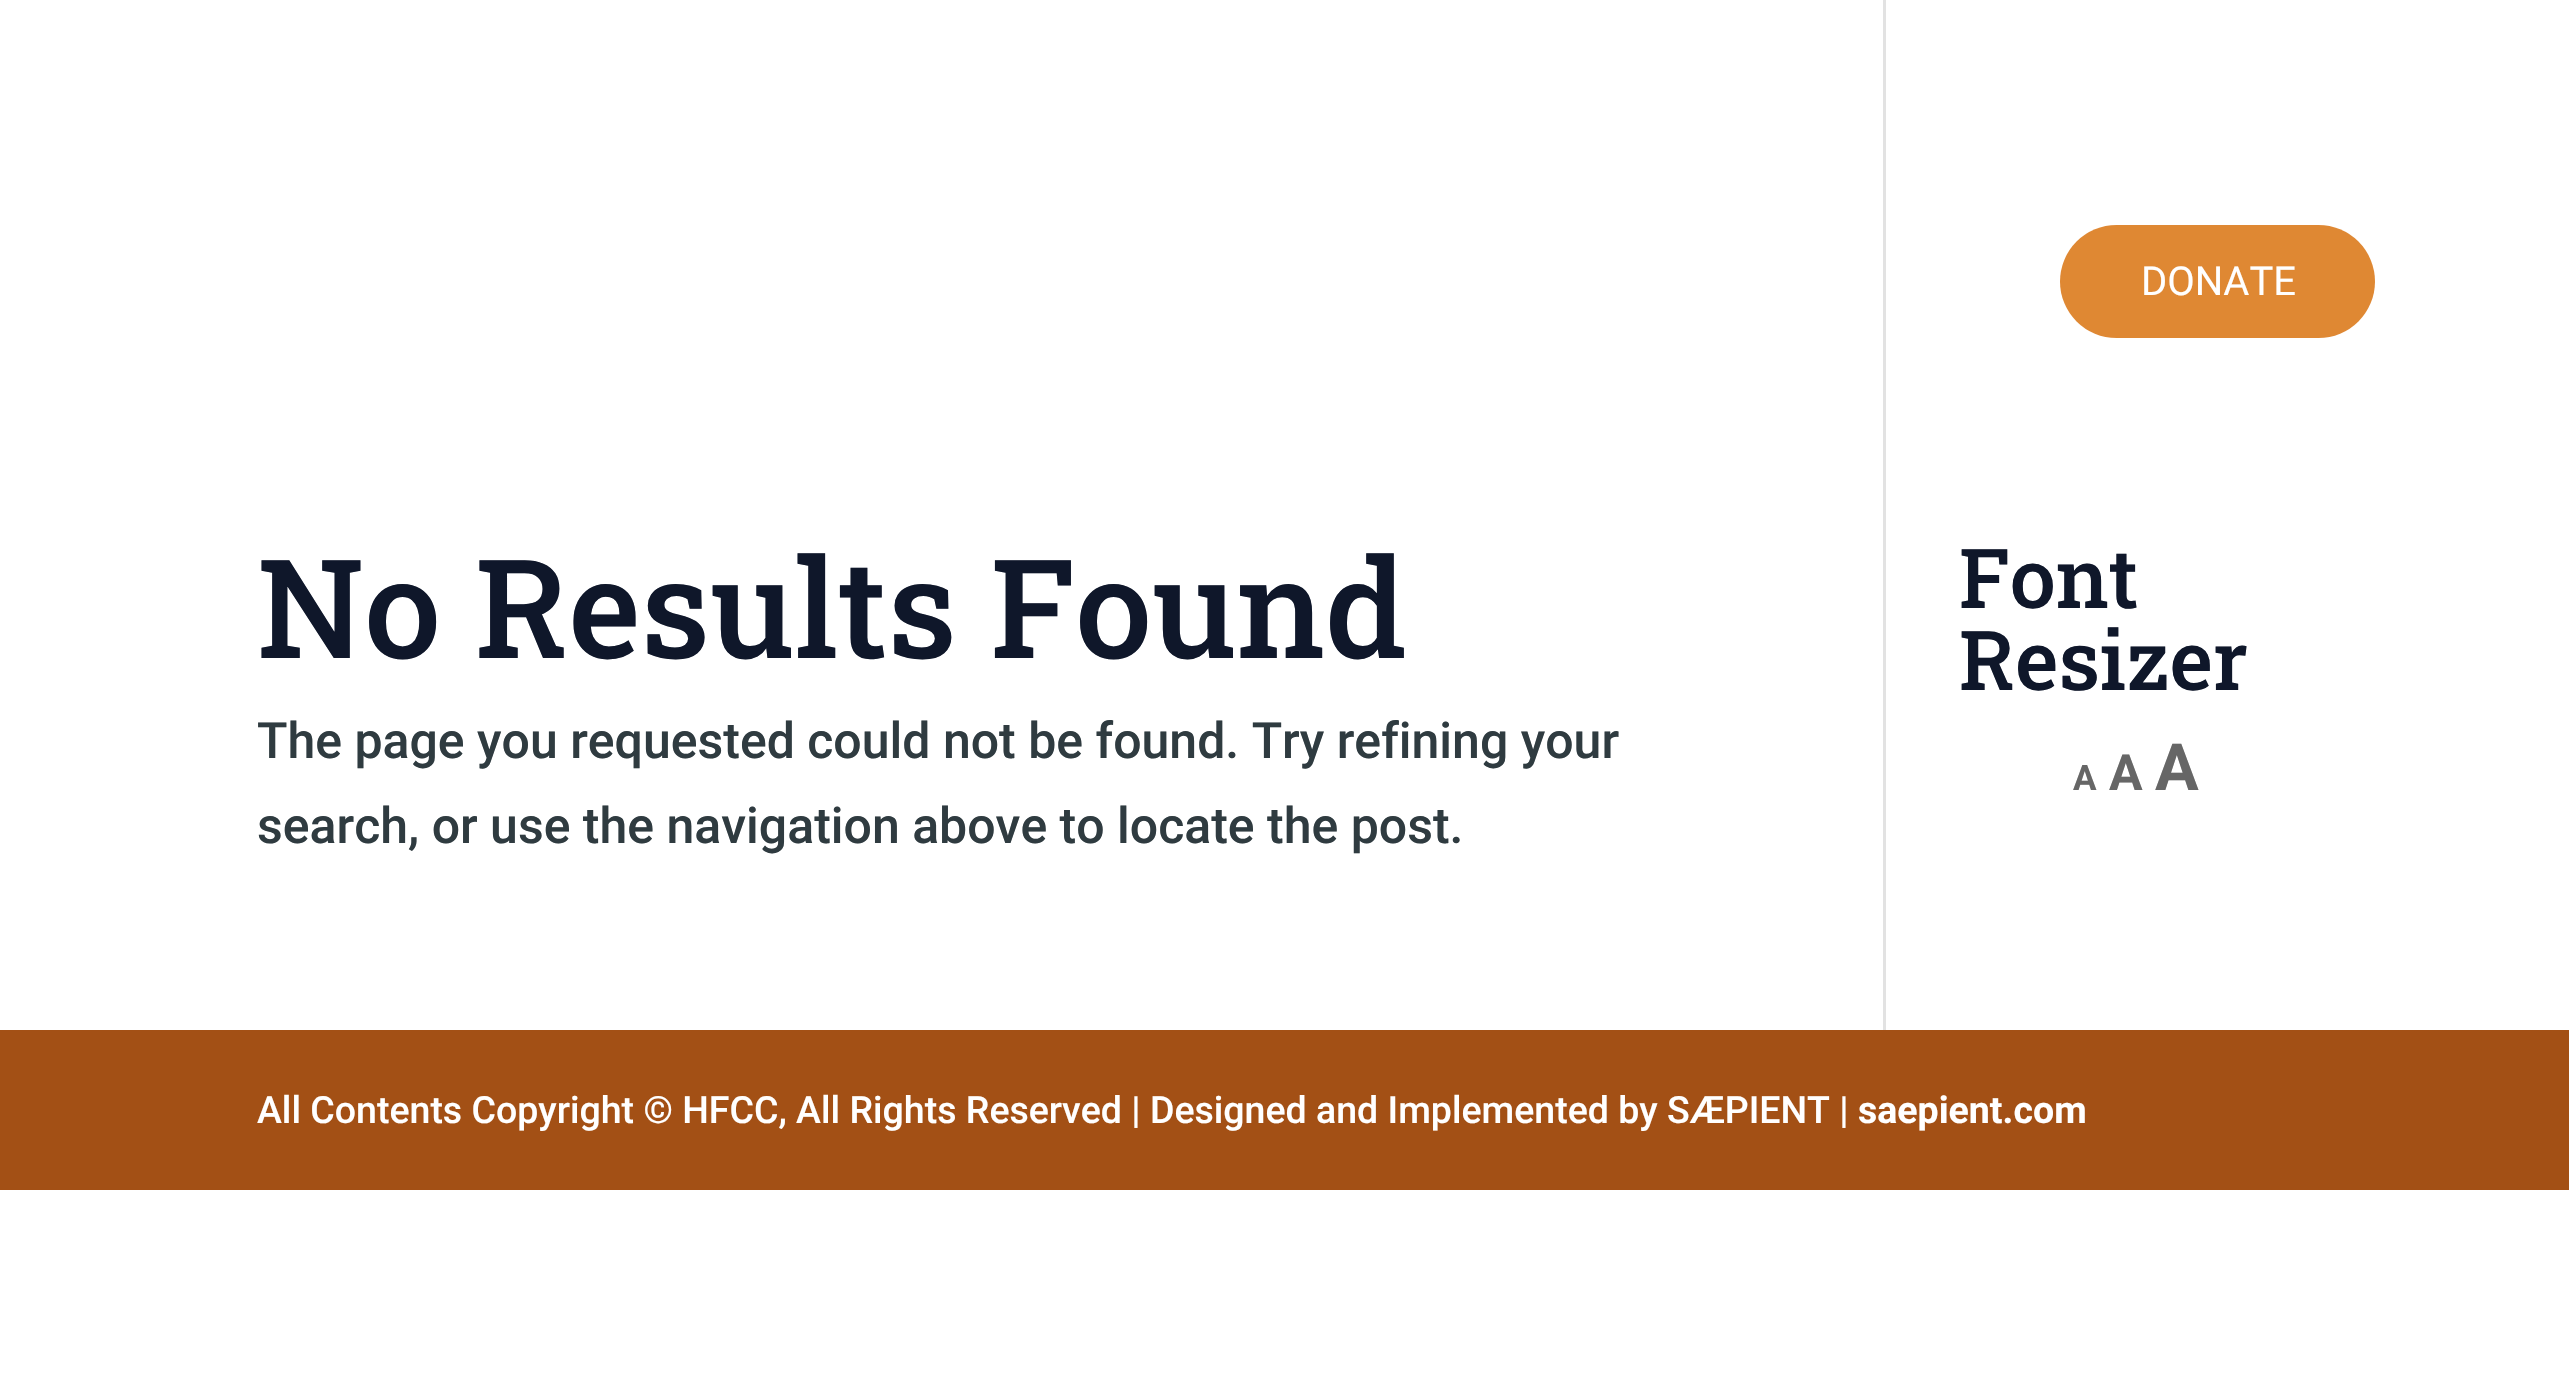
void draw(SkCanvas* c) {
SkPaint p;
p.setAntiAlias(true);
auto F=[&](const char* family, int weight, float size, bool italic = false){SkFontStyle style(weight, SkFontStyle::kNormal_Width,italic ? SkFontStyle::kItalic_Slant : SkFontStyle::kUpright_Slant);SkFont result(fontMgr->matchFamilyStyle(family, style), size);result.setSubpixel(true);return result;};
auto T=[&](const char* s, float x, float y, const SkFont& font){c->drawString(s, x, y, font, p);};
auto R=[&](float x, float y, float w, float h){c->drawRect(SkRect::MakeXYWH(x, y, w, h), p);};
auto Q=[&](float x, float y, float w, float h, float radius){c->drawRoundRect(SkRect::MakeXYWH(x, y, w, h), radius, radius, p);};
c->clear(0xffffffff);
p.setColor(0xffdf8833);
Q(2060,225,315,113,56.5);
auto f1 = F("Roboto",400,40);
p.setColor(0xffffffff);
T("DONATE",2141,295,f1);
p.setColor(0xffe2e2e2);
R(1883,0,3,1030);
auto f2 = F("Roboto Slab",500,137.5);
p.setColor(0xff0f172a);
T("No Results Found",257,658,f2);
auto f3 = F("Roboto",500,50);
p.setColor(0xff2f3b40);
T("The page you requested could not be found. Try refining your",257,758,f3);
T("search, or use the navigation above to locate the post.",257,843,f3);
auto f4 = F("Roboto Slab",500,82.5);
p.setColor(0xff0f172a);
T("Font",1959,608,f4);
T("Resizer",1959,690,f4);
auto f5 = F("Roboto",700,35);
p.setColor(0xff666666);
T("A",2073,790,f5);
auto f6 = F("Roboto",700,50);
T("A",2109,790,f6);
auto f7 = F("Roboto",700,65);
T("A",2155,790,f7);
p.setColor(0xffa35015);
R(0,1030,2569,160);
auto f8 = F("Roboto",500,37.5);
p.setColor(0xffffffff);
T("All Contents Copyright © HFCC, All Rights Reserved | Designed and Implemented by SÆPIENT |",257,1123,f8);
auto f9 = F("Roboto",700,37.5);
T("saepient.com",1858,1123,f9);
}
